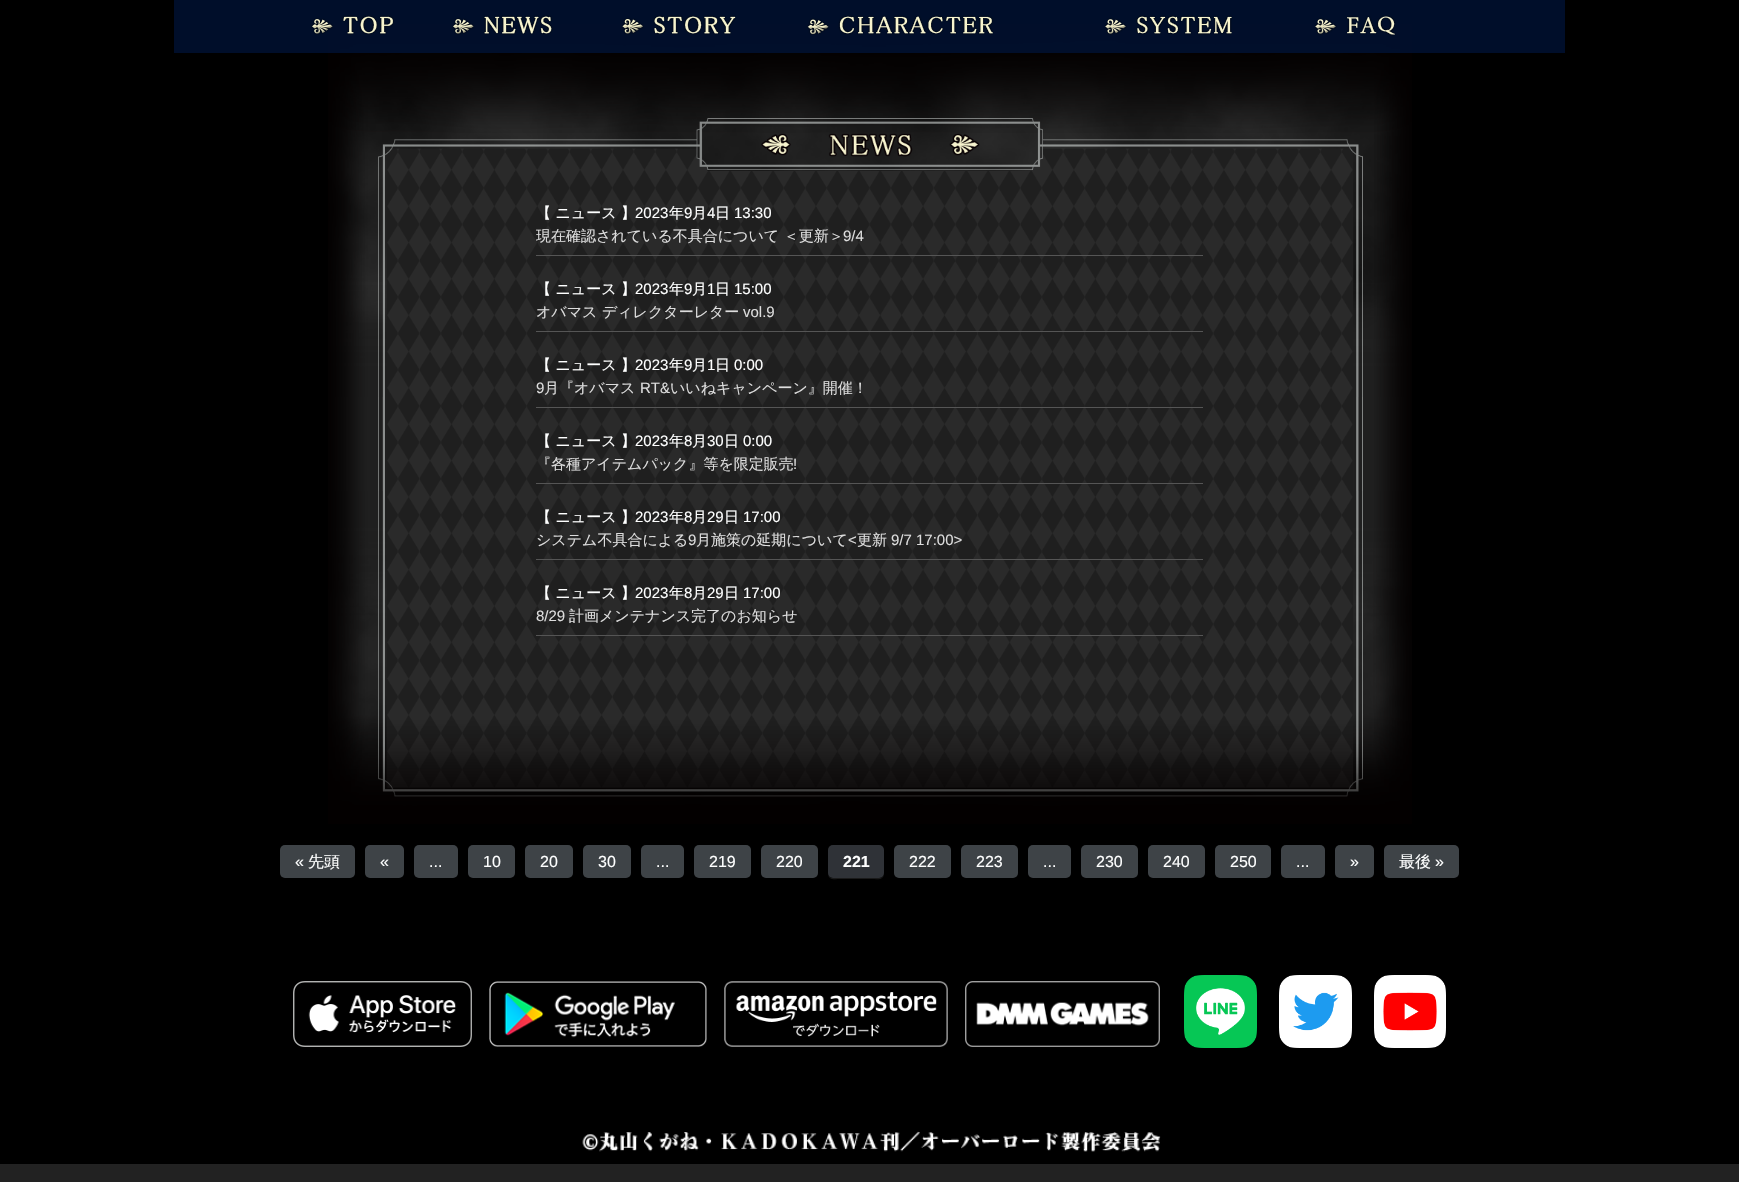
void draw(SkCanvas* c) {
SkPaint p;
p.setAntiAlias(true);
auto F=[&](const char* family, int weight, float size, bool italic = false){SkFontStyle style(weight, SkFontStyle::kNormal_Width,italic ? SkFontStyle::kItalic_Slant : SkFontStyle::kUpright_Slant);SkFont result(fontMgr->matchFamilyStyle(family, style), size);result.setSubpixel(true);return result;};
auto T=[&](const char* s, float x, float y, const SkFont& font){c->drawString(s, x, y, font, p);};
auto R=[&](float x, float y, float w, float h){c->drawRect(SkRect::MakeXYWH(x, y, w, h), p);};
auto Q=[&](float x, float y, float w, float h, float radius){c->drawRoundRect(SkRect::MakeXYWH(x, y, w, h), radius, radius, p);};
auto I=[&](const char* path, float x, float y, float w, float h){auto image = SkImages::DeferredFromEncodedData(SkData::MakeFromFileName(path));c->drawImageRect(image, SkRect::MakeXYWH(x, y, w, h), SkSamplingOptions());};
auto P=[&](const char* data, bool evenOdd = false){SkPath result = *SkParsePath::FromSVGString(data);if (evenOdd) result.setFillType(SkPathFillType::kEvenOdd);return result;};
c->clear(0xff222222);
p.setColor(0xff000000);
R(0,0,1739,1164);
I("7.png",386,148,968,640);
I("8.png",328,24,1084,800);
p.setColor(0xcc001134);
R(174,0,1391,53);
I("1.png",311,15,83,20);
I("2.png",452,15,101,20);
I("3.png",622,15,114,20);
I("4.png",807,15,187,20);
I("5.png",1105,15,127,20);
I("6.png",1315,15,81,21);
auto f1 = F("WenQuanYi Zen Hei",500,15);
p.setColor(0xfffeffff);
T("【 ニュース 】",536,218,f1);
auto f2 = F("Liberation Sans",400,15);
T("2023",635,218,f2);
T("年",669,218,f1);
T("9",684,218,f2);
T("月",692,218,f1);
T("4",707,218,f2);
T("日",715,218,f1);
T("13:30",734,218,f2);
p.setColor(0xffdddddd);
T("現在確認されている不具合について ＜更新＞",536,241,f1);
T("9/4",843,241,f2);
p.setColor(0xff555555);
R(536,255,667,1);
p.setColor(0xfffeffff);
T("【 ニュース 】",536,294,f1);
T("2023",635,294,f2);
T("年",669,294,f1);
T("9",684,294,f2);
T("月",692,294,f1);
T("1",707,294,f2);
T("日",715,294,f1);
T("15:00",734,294,f2);
p.setColor(0xffdddddd);
T("オバマス ディレクターレター",536,317,f1);
T("vol.9",743,317,f2);
p.setColor(0xff555555);
R(536,331,667,1);
p.setColor(0xfffeffff);
T("【 ニュース 】",536,370,f1);
T("2023",635,370,f2);
T("年",669,370,f1);
T("9",684,370,f2);
T("月",692,370,f1);
T("1",707,370,f2);
T("日",715,370,f1);
T("0:00",734,370,f2);
p.setColor(0xffdddddd);
T("9",536,393,f2);
T("月『オバマス",544,393,f1);
T("RT&",640,393,f2);
T("いいねキャンペーン』開催！",670,393,f1);
p.setColor(0xff555555);
R(536,407,667,1);
p.setColor(0xfffeffff);
T("【 ニュース 】",536,446,f1);
T("2023",635,446,f2);
T("年",669,446,f1);
T("8",684,446,f2);
T("月",692,446,f1);
T("30",707,446,f2);
T("日",724,446,f1);
T("0:00",743,446,f2);
p.setColor(0xffdddddd);
T("『各種アイテムパック』等を限定販売",536,469,f1);
T("!",793,469,f2);
p.setColor(0xff555555);
R(536,483,667,1);
p.setColor(0xfffeffff);
T("【 ニュース 】",536,522,f1);
T("2023",635,522,f2);
T("年",669,522,f1);
T("8",684,522,f2);
T("月",692,522,f1);
T("29",707,522,f2);
T("日",724,522,f1);
T("17:00",743,522,f2);
p.setColor(0xffdddddd);
T("システム不具合による",536,545,f1);
T("9",688,545,f2);
T("月施策の延期について",696,545,f1);
T("<",848,545,f2);
T("更新",857,545,f1);
T("9/7 17:00>",891,545,f2);
p.setColor(0xff555555);
R(536,559,667,1);
p.setColor(0xfffeffff);
T("【 ニュース 】",536,598,f1);
T("2023",635,598,f2);
T("年",669,598,f1);
T("8",684,598,f2);
T("月",692,598,f1);
T("29",707,598,f2);
T("日",724,598,f1);
T("17:00",743,598,f2);
p.setColor(0xffdddddd);
T("8/29",536,621,f2);
T("計画メンテナンス完了のお知らせ",569,621,f1);
p.setColor(0xff555555);
R(536,635,667,1);
p.setColor(0xff3e4347);
Q(280,845,75,33,5);
auto f3 = F("Liberation Sans",400,16);
p.setColor(0xfffeffff);
T("«",295,867,f3);
auto f4 = F("WenQuanYi Zen Hei",500,16);
T("先頭",308,867,f4);
p.setColor(0xff3e4347);
Q(365,845,39,33,5);
p.setColor(0xfffeffff);
T("«",380,867,f3);
p.setColor(0xff3e4347);
Q(414,845,44,33,5);
p.setColor(0xfffeffff);
T("...",429,867,f3);
p.setColor(0xff3e4347);
Q(468,845,47,33,5);
p.setColor(0xfffeffff);
T("10",483,867,f3);
p.setColor(0xff3e4347);
Q(525,845,48,33,5);
p.setColor(0xfffeffff);
T("20",540,867,f3);
p.setColor(0xff3e4347);
Q(583,845,48,33,5);
p.setColor(0xfffeffff);
T("30",598,867,f3);
p.setColor(0xff3e4347);
Q(641,845,43,33,5);
p.setColor(0xfffeffff);
T("...",656,867,f3);
p.setColor(0xff3e4347);
Q(694,845,57,33,5);
p.setColor(0xfffeffff);
T("219",709,867,f3);
p.setColor(0xff3e4347);
Q(761,845,57,33,5);
p.setColor(0xfffeffff);
T("220",776,867,f3);
p.setColor(0xff1a1a1a);
c->drawPath(P("M828 873c0 8 7 6 13 6h30c6 0 13 2 13-6c0 3-2 5-5 5h-46c-3 0-5-2-5-5z"),p);
p.setColor(0xff2f3237);
Q(828,845,56,33,5);
auto f5 = F("Liberation Sans",700,16);
p.setColor(0xfffeffff);
T("221",843,867,f5);
p.setColor(0xff3e4347);
Q(894,845,57,33,5);
p.setColor(0xfffeffff);
T("222",909,867,f3);
p.setColor(0xff3e4347);
Q(961,845,57,33,5);
p.setColor(0xfffeffff);
T("223",976,867,f3);
p.setColor(0xff3e4347);
Q(1028,845,43,33,5);
p.setColor(0xfffeffff);
T("...",1043,867,f3);
p.setColor(0xff3e4347);
Q(1081,845,57,33,5);
p.setColor(0xfffeffff);
T("230",1096,867,f3);
p.setColor(0xff3e4347);
Q(1148,845,57,33,5);
p.setColor(0xfffeffff);
T("240",1163,867,f3);
p.setColor(0xff3e4347);
Q(1215,845,56,33,5);
p.setColor(0xfffeffff);
T("250",1230,867,f3);
p.setColor(0xff3e4347);
Q(1281,845,44,33,5);
p.setColor(0xfffeffff);
T("...",1296,867,f3);
p.setColor(0xff3e4347);
Q(1335,845,39,33,5);
p.setColor(0xfffeffff);
T("»",1350,867,f3);
p.setColor(0xff3e4347);
Q(1384,845,75,33,5);
p.setColor(0xfffeffff);
T("最後",1399,867,f4);
T("»",1435,867,f3);
I("9.png",293,981,179,66);
I("10.png",489,981,218,66);
I("11.png",724,981,224,66);
I("12.png",965,981,195,66);
I("13.png",1184,975,73,73);
I("14.png",1279,975,73,73);
I("15.png",1374,975,72,73);
I("16.png",582,1131,579,21);
}
